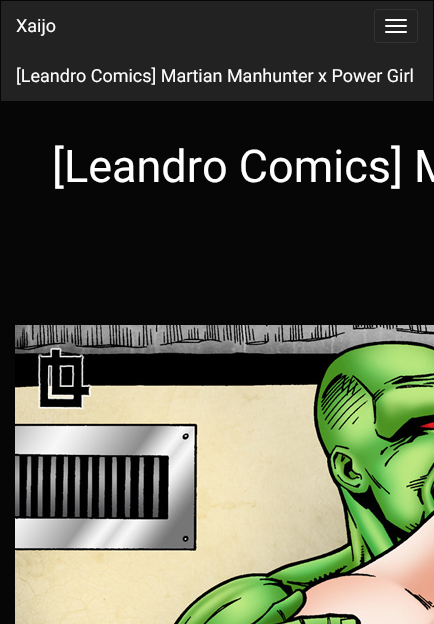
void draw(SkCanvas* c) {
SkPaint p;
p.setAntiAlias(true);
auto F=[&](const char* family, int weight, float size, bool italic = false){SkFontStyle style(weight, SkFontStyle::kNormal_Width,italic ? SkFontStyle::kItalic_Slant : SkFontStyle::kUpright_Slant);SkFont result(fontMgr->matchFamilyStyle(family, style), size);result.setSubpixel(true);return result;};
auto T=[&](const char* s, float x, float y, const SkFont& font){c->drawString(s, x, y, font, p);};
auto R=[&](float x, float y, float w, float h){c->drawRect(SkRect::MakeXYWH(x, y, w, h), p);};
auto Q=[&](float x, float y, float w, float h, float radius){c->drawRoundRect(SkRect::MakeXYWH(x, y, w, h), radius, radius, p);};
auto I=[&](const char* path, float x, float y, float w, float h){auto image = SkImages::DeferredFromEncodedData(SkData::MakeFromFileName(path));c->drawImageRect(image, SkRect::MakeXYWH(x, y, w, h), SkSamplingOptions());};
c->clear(0xff060606);
p.setColor(0xff222222);
R(1,1,432,100);
auto f1 = F("Roboto",400,18);
p.setColor(0xffffffff);
T("Xaijo",16,32,f1);
p.setStroke(true);
p.setStrokeWidth(1);
p.setColor(0xff333333);
c->drawRoundRect(SkRect::MakeXYWH(374.5,9.5,43,33),3.5,3.5,p);
p.setStroke(false);
p.setColor(0xffffffff);
Q(385,19,22,2,1);
Q(385,25,22,2,1);
Q(385,31,22,2,1);
T("[Leandro Comics] Martian Manhunter x Power Girl",16,82,f1);
auto f2 = F("Roboto",400,45);
T("[Leandro Comics] M",52,182,f2);
I("1.png",15,325,419,299);
}
